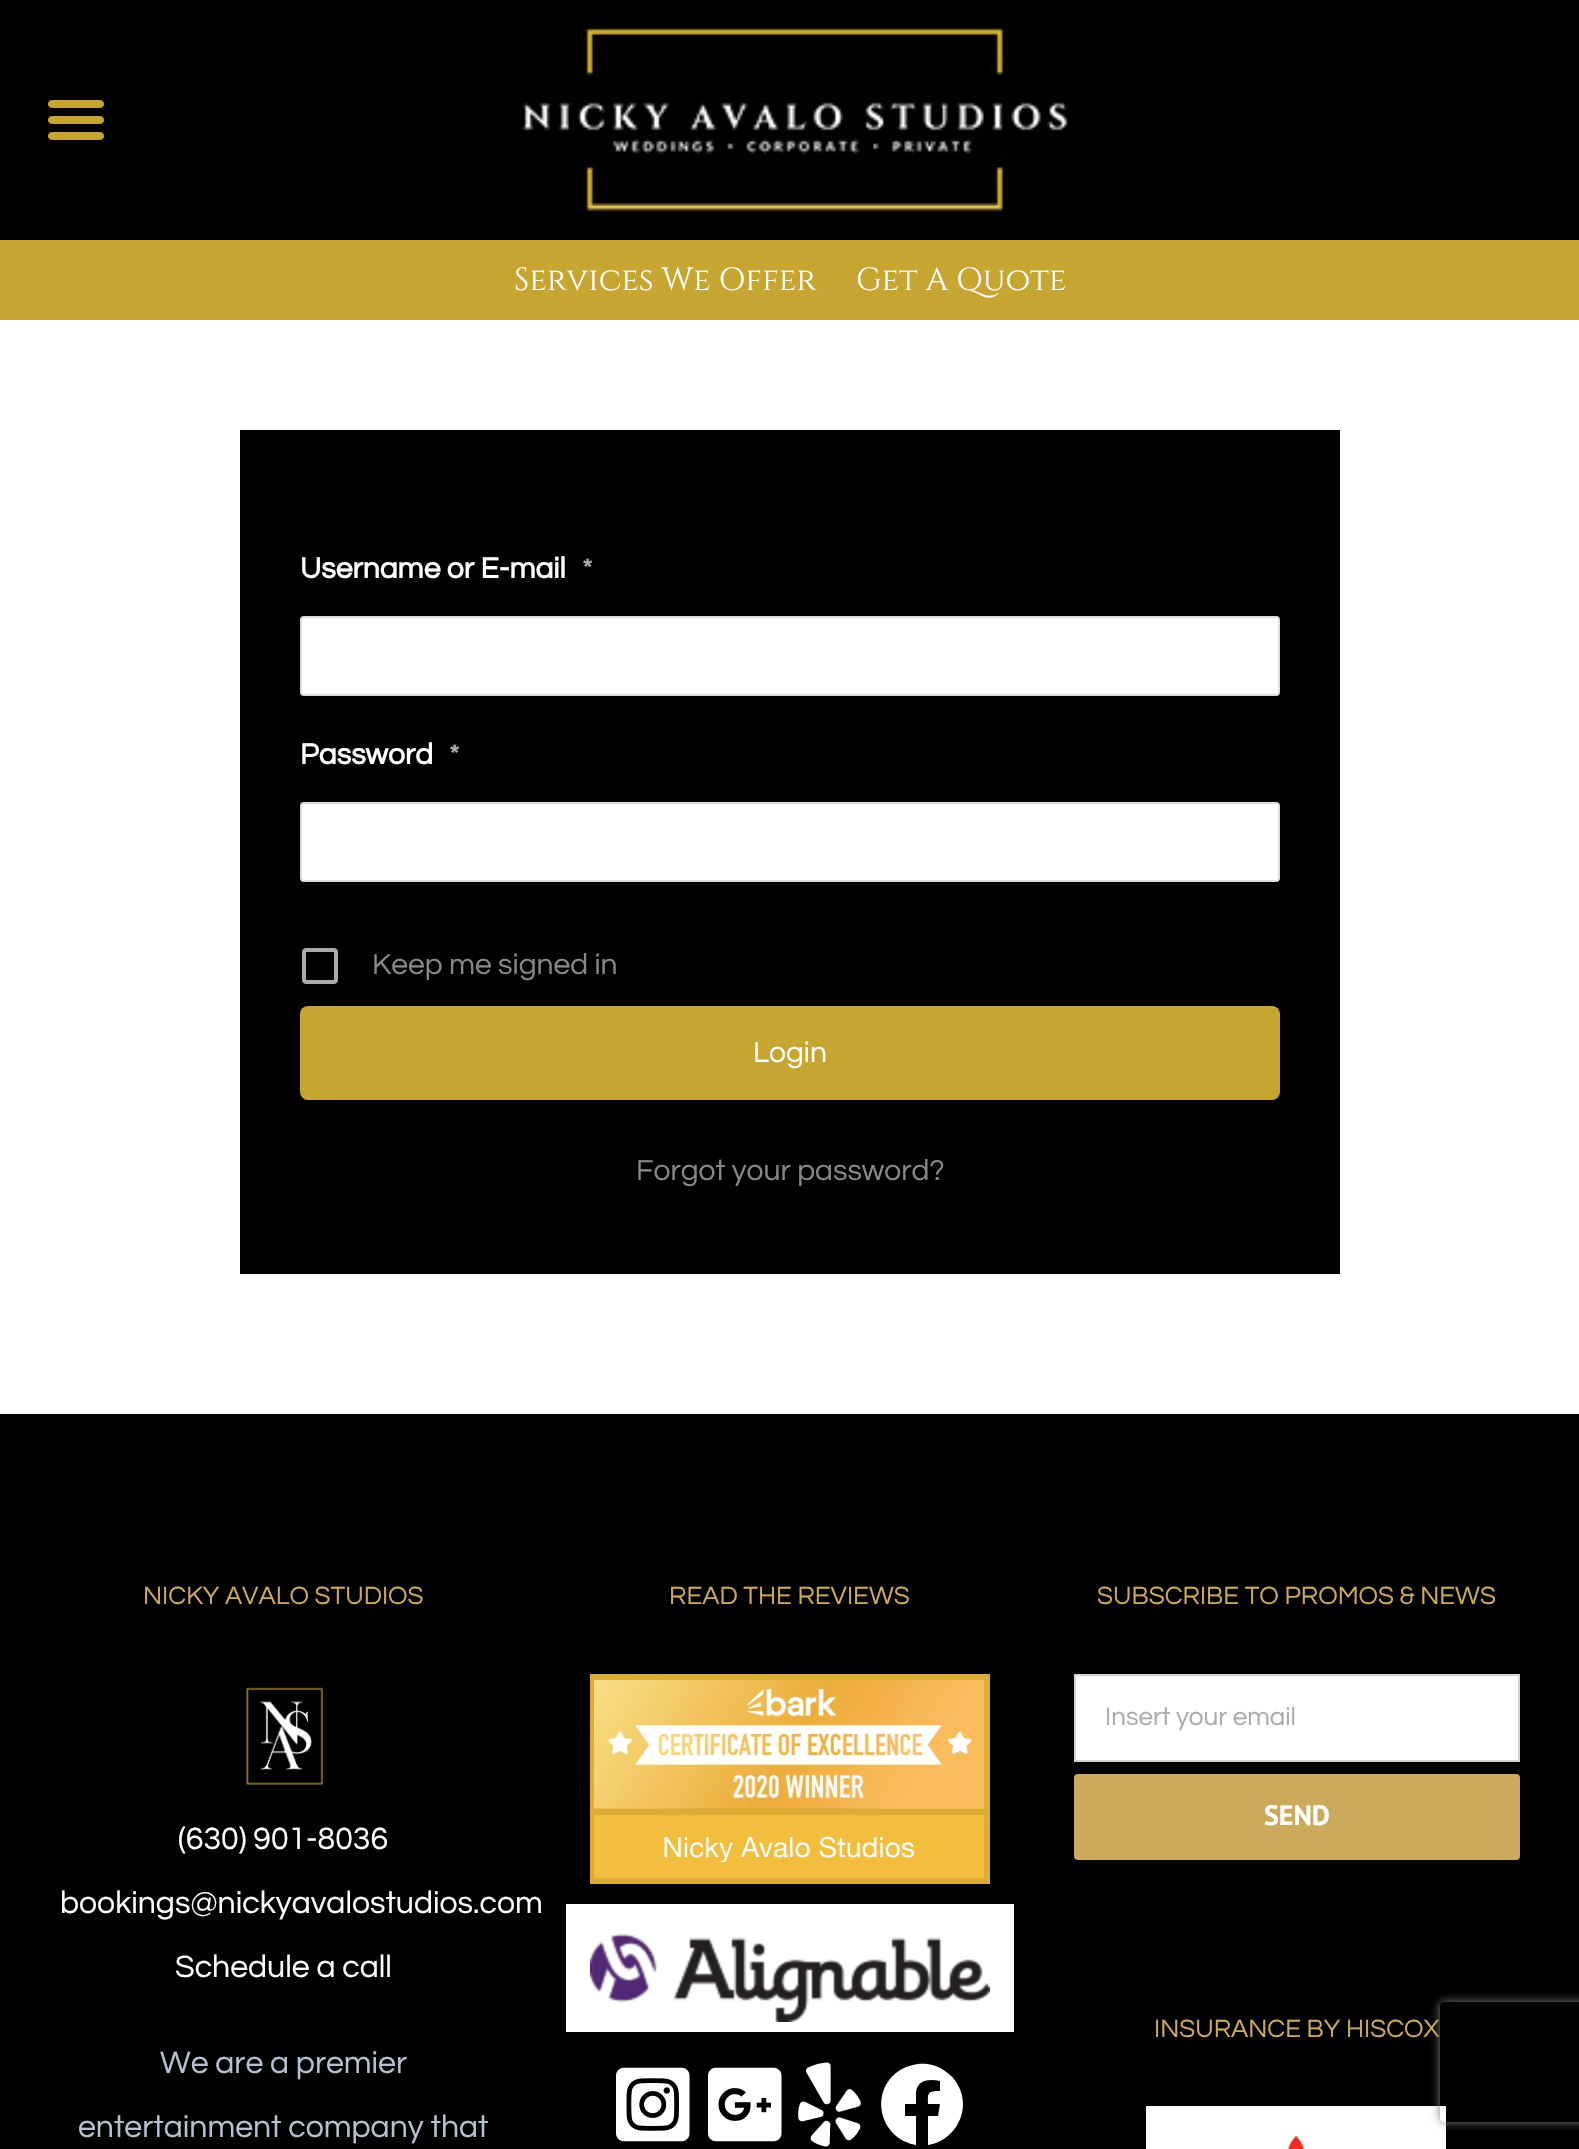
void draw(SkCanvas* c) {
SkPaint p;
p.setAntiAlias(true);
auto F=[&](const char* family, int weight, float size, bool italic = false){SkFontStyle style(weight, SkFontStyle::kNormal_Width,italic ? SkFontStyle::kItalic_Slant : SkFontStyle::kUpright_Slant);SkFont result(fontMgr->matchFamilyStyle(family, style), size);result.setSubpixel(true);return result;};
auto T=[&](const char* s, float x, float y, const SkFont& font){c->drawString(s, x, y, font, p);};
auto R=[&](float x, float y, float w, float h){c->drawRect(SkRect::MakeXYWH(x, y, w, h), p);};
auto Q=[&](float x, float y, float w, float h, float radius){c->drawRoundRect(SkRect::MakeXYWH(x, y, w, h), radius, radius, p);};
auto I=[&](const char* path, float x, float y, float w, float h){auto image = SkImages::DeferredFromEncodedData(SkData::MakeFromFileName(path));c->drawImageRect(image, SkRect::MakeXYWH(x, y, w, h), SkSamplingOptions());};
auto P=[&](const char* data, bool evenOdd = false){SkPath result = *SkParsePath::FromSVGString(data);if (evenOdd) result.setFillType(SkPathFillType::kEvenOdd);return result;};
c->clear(0xffffffff);
p.setColor(0xff000000);
R(0,0,1579,240);
I("1.png",48,100,56,40);
I("2.png",522,20,546,192);
p.setColor(0xffc6a530);
R(0,240,1579,80);
auto f1 = F("Cinzel",400,32);
p.setColor(0xffffffff);
T("Services We Offer",514,290,f1);
T("Get A Quote",856,290,f1);
p.setColor(0xff000000);
R(240,430,1100,844);
auto f2 = F("Questrial",700,30);
p.setColor(0xffffffff);
T("Username or E-mail",300,578,f2);
auto f3 = F("Questrial",700,28);
p.setColor(0xffaaaaaa);
T("*",582,578,f3);
p.setColor(0xffffffff);
c->drawRoundRect(SkRect::MakeXYWH(301,617,978,78),3,3,p);
p.setStroke(true);
p.setStrokeWidth(2);
p.setColor(0xffdddddd);
c->drawRoundRect(SkRect::MakeXYWH(301,617,978,78),3,3,p);
p.setStroke(false);
p.setColor(0xffffffff);
T("Password",300,764,f2);
p.setColor(0xffaaaaaa);
T("*",449,764,f3);
p.setColor(0xffffffff);
c->drawRoundRect(SkRect::MakeXYWH(301,803,978,78),3,3,p);
p.setStroke(true);
p.setColor(0xffdddddd);
c->drawRoundRect(SkRect::MakeXYWH(301,803,978,78),3,3,p);
I("3.png",302,948,36,36);
auto f4 = F("Questrial",400,30);
p.setStroke(false);
p.setColor(0xff888888);
T("Keep me signed in",372,974,f4);
p.setColor(0xffc6a530);
Q(300,1006,980,94,8);
p.setColor(0xffffffff);
T("Login",753,1062,f4);
p.setColor(0xff888888);
T("Forgot your password?",636,1180,f4);
p.setColor(0xff000000);
R(0,1414,1579,735);
auto f5 = F("Questrial",400,26);
p.setColor(0xffcbaa5c);
T("NICKY AVALO STUDIOS",143,1604,f5);
I("4.png",246,1687,77,98);
auto f6 = F("Questrial",400,32);
p.setColor(0xffffffff);
T("(630) 901-8036",178,1849,f6);
T("bookings@nickyavalostudios.com",60,1913,f6);
T("Schedule a call",175,1977,f6);
p.setColor(0xffb6c0ce);
T("We are a premier",160,2073,f6);
T("entertainment company that",78,2137,f6);
p.setColor(0xffcbaa5c);
T("READ THE REVIEWS",669,1604,f5);
I("5.png",590,1674,400,210);
p.setColor(0xffffffff);
R(566,1904,448,128);
I("6.png",590,1933,400,89);
I("7.png",616,2067,74,75);
I("8.png",708,2067,74,75);
I("9.png",798,2062,63,85);
c->drawPath(P("M963 2104c0 20-15 38-35 41v-29h10l2-12h-12c0-11-1-13 12-13v-10c-10-2-22-2-24 11v12h-11v12h11v29c-35-6-47-50-20-72c6-5 14-8 22-9c9-1 19 1 27 7c11 7 18 20 18 33z"),p);
p.setColor(0xffcbaa5c);
T("SUBSCRIBE TO PROMOS & NEWS",1097,1604,f5);
p.setColor(0xffffffff);
c->drawRect(SkRect::MakeXYWH(1075,1675,444,86),p);
p.setStroke(true);
p.setColor(0xffd2d2d2);
c->drawRect(SkRect::MakeXYWH(1075,1675,444,86),p);
p.setStroke(false);
p.setColor(0xffaaaaaa);
T("Insert your email",1105,1725,f5);
p.setColor(0xffcbaa5c);
Q(1074,1774,446,86,4);
auto f7 = F("PT Sans",700,28);
p.setColor(0xffffffff);
T("SEND",1264,1825,f7);
p.setColor(0xffcbaa5c);
T("INSURANCE BY HISCOX",1154,2037,f5);
I("10.png",1146,2106,300,43);
c->save();
c->clipPath(P("M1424 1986h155v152h-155zm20 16h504c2 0 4 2 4 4v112c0 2-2 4-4 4h-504c-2 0-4-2-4-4v-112c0-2 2-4 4-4z",true),true);
p.setColor(0xff808080);
p.setMaskFilter(SkMaskFilter::MakeBlur(kNormal_SkBlurStyle, 5));
c->drawRoundRect(SkRect::MakeXYWH(1440,2002,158,120),4,4,p);
p.setMaskFilter(nullptr);
c->restore();
}
